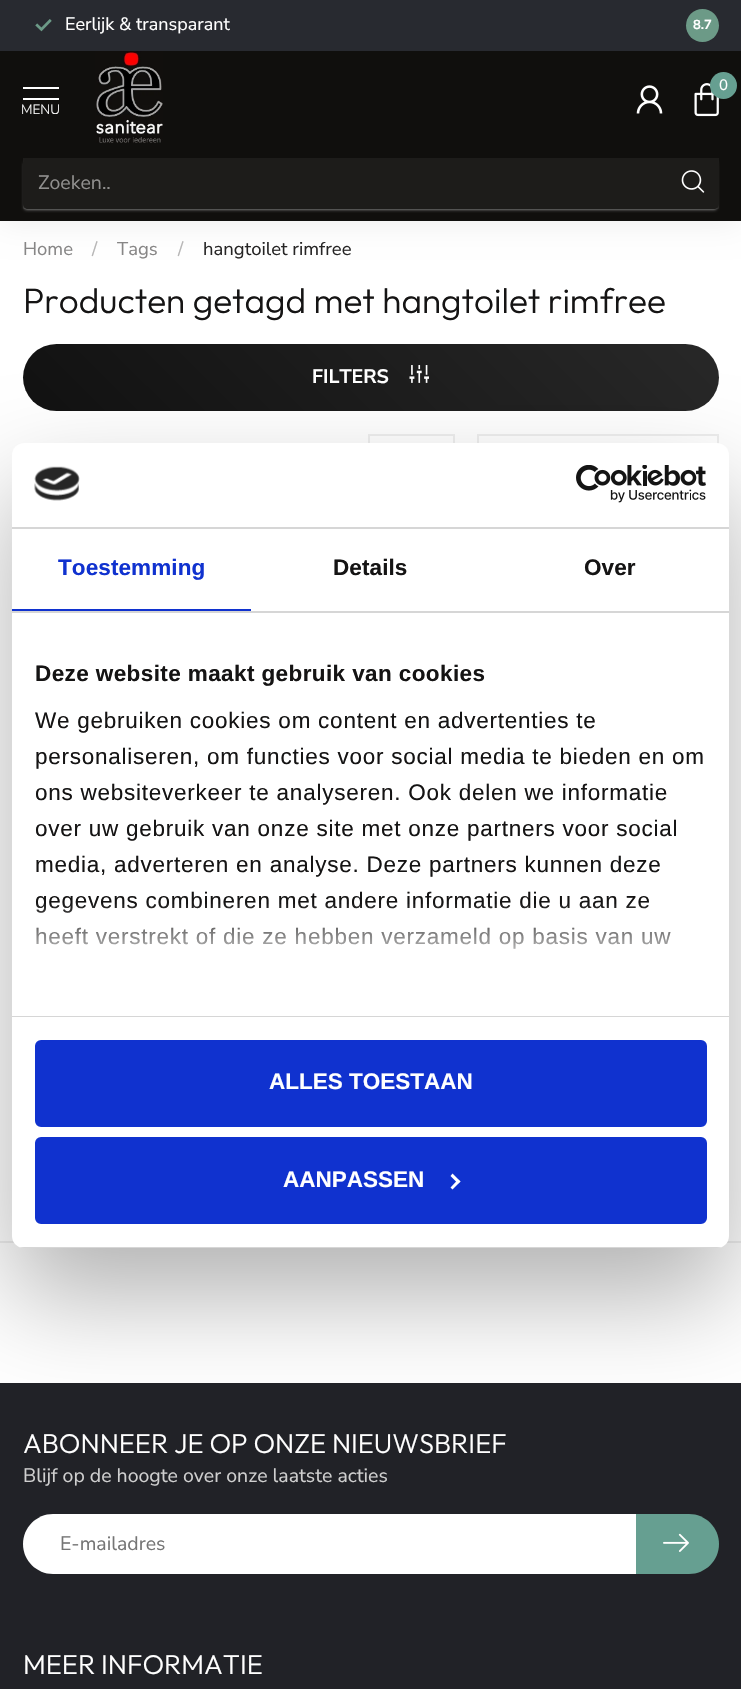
void draw(SkCanvas* c) {
SkPaint p;
p.setAntiAlias(true);
auto F=[&](const char* family, int weight, float size, bool italic = false){SkFontStyle style(weight, SkFontStyle::kNormal_Width,italic ? SkFontStyle::kItalic_Slant : SkFontStyle::kUpright_Slant);SkFont result(fontMgr->matchFamilyStyle(family, style), size);result.setSubpixel(true);return result;};
auto T=[&](const char* s, float x, float y, const SkFont& font){c->drawString(s, x, y, font, p);};
auto L=[&](const char* s, float x, float y, const SkFont& font, const SkPaint& ink, float letter, float word){std::vector<SkGlyphID> glyphs(font.countText(s, strlen(s), SkTextEncoding::kUTF8));std::vector<float> xs(glyphs.size());font.textToGlyphs(s, strlen(s), SkTextEncoding::kUTF8, glyphs);font.getXPos(glyphs, xs, x);float extra = 0;for (size_t i = 0; i < glyphs.size(); i++) {xs[i] += extra;extra += letter + word * (glyphs[i] == font.unicharToGlyph(' '));}c->drawTextBlob(SkTextBlob::MakeFromPosHGlyphs(glyphs, xs, y, font), 0, 0, ink);};
auto R=[&](float x, float y, float w, float h){c->drawRect(SkRect::MakeXYWH(x, y, w, h), p);};
auto Q=[&](float x, float y, float w, float h, float radius){c->drawRoundRect(SkRect::MakeXYWH(x, y, w, h), radius, radius, p);};
auto I=[&](const char* path, float x, float y, float w, float h){auto image = SkImages::DeferredFromEncodedData(SkData::MakeFromFileName(path));c->drawImageRect(image, SkRect::MakeXYWH(x, y, w, h), SkSamplingOptions());};
auto P=[&](const char* data, bool evenOdd = false){SkPath result = *SkParsePath::FromSVGString(data);if (evenOdd) result.setFillType(SkPathFillType::kEvenOdd);return result;};
c->clear(0xffffffff);
p.setColor(0xff282a30);
R(0,0,741,51);
I("1.png",35,19,17,13);
auto f1 = F("Nunito Sans",400,18);
p.setColor(0xffffffff);
T("Eerlijk & transparant",65,30,f1);
p.setColor(0xff6c9a87);
c->drawCircle(702.5,25.5,16.5,p);
auto f2 = F("Nunito Sans",700,13);
p.setColor(0xffffffff);
T("8.7",693,29,f2);
p.setColor(0x14000000);
p.setMaskFilter(SkMaskFilter::MakeBlur(kNormal_SkBlurStyle, 16.5));
c->drawRect(SkRect::MakeXYWH(0,147,741,74),p);
p.setMaskFilter(nullptr);
p.setColor(0xff100f0d);
R(0,51,741,170);
I("2.png",95,51,68,92);
I("3.png",636,85,27,29);
I("4.png",694,83,25,34);
p.setColor(0xff669f91);
c->drawCircle(723.5,85.5,13.5,p);
auto f3 = F("Nunito Sans",400,15);
p.setColor(0xffffffff);
T("0",719,90,f3);
R(23,87,36,2);
R(23,98,36,2);
auto f4 = F("Nunito Sans",300,13.5);
T("MENU",21,114,f4);
c->save();
c->clipPath(P("M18 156h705v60h-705zm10 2h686c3 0 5 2 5 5v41c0 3-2 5-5 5h-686c-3 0-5-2-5-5v-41c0-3 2-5 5-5z",true),true);
p.setColor(0xbf9b9b9b);
p.setMaskFilter(SkMaskFilter::MakeBlur(kNormal_SkBlurStyle, 1.5));
c->drawRoundRect(SkRect::MakeXYWH(24,162,693,48),3,3,p);
p.setMaskFilter(nullptr);
c->restore();
p.setColor(0x0dffffff);
R(23,158,696,51);
auto f5 = F("Nunito Sans",400,19.5);
p.setColor(0xff908f8e);
T("Zoeken..",38,189,f5);
I("5.png",681,170,24,23);
auto f6 = F("Nunito Sans",400,18.5);
p.setColor(0xff878686);
T("Home",23,255,f6);
p.setColor(0xffb7b6b6);
T("/",92,255,f6);
p.setColor(0xff878686);
T("Tags",117,255,f6);
p.setColor(0xffb7b6b6);
T("/",178,255,f6);
p.setColor(0xff262525);
T("hangtoilet rimfree",203,255,f6);
auto f7 = F("Outfit",300,35.1);
p.setColor(0xff151414);
T("Producten getagd met hangtoilet rimfree",23,313,f7);
{
const SkColor colors[] = {0xff111111,0xff282828};
const float stops[] = {0,1};
const SkPoint ends[] = {{180,568}, {561,186}};
p.setShader(SkGradientShader::MakeLinear(ends, colors, stops, 2, SkTileMode::kClamp));
p.setAlpha(255);
}
Q(23,344,696,67,33.5);
auto f8 = F("Nunito Sans",700,19.5);
p.setShader(nullptr);
p.setColor(0xffffffff);
T("FILTERS",312,383,f8);
I("6.png",409,365,20,18);
p.setStroke(true);
p.setStrokeWidth(2);
p.setColor(0xffeeeeee);
c->drawRect(SkRect::MakeXYWH(369,435,85,56),p);
c->drawRect(SkRect::MakeXYWH(478,435,240,56),p);
p.setStroke(false);
R(0,1241,741,2);
p.setColor(0xff212227);
R(0,1383,741,306);
p.setColor(0x4d000000);
p.setMaskFilter(SkMaskFilter::MakeBlur(kNormal_SkBlurStyle, 51));
c->drawRoundRect(SkRect::MakeXYWH(12,491,717,805),12,12,p);
p.setMaskFilter(nullptr);
p.setColor(0xffffffff);
Q(12,443,717,805,12);
p.setColor(0xffd6d6d6);
R(12,527,717,2);
I("7.png",34,466,46,35);
I("8.png",576,465,130,38);
R(12,611,717,2);
p.setColor(0xff1032cf);
R(12,609,239,2);
auto f9 = F("Liberation Sans",700,22.5);
L("Toestemming",58,575,f9,p,.1,0);
p.setColor(0xff151414);
L("Details",333,575,f9,p,.1,0);
L("Over",584,575,f9,p,.1,0);
p.setColor(0xffd6d6d6);
R(12,1016,717,1);
p.setColor(0xff151414);
L("Deze website maakt gebruik van cookies",35,681,f9,p,.4,0);
auto f10 = F("Liberation Sans",400,22.5);
L("We gebruiken cookies om content en advertenties te",35,728,f10,p,.75,0);
L("personaliseren, om functies voor social media te bieden en om",35,764,f10,p,.75,0);
L("ons websiteverkeer te analyseren. Ook delen we informatie",35,800,f10,p,.75,0);
L("over uw gebruik van onze site met onze partners voor social",35,836,f10,p,.75,0);
L("media, adverteren en analyse. Deze partners kunnen deze",35,872,f10,p,.75,0);
L("gegevens combineren met andere informatie die u aan ze",35,908,f10,p,.75,0);
L("heeft verstrekt of die ze hebben verzameld op basis van uw",35,944,f10,p,.75,0);
{
const SkColor colors[] = {0xffffffff,0xccffffff,0x00ffffff};
const float stops[] = {0,.5,1};
const SkPoint ends[] = {{361,1015}, {361,902}};
p.setShader(SkGradientShader::MakeLinear(ends, colors, stops, 3, SkTileMode::kClamp));
p.setAlpha(255);
}
R(35,904,636,45);
c->save();
c->clipPath(P("M24 443h693c6.5 0 12 5.5 12 12v781c0 6.5-5.5 12-12 12h-693c-6.5 0-12-5.5-12-12v-781c0-6.5 5.5-12 12-12z"),true);
p.setShader(nullptr);
p.setColor(0xffd6d6d6);
R(12,1247,717,1);
c->restore();
p.setColor(0xff1032cf);
c->drawRoundRect(SkRect::MakeXYWH(36.5,1041.5,669,84),4.5,4.5,p);
p.setStroke(true);
p.setStrokeWidth(3);
c->drawRoundRect(SkRect::MakeXYWH(36.5,1041.5,669,84),4.5,4.5,p);
p.setStroke(false);
p.setColor(0xffffffff);
T("ALLES TOESTAAN",269,1089,f9);
p.setColor(0xff1032cf);
c->drawRoundRect(SkRect::MakeXYWH(36.5,1138.5,669,84),4.5,4.5,p);
p.setStroke(true);
c->drawRoundRect(SkRect::MakeXYWH(36.5,1138.5,669,84),4.5,4.5,p);
p.setStroke(false);
p.setColor(0xffffffff);
T("AANPASSEN",283,1187,f9);
c->drawPath(P("M452.5 1173.5l8 8l-2.5 2l-7.5-7.5z"),p);
c->drawPath(P("M458 1179.5l2.5 2l-8 8l-2-2z"),p);
auto f11 = F("Outfit",300,27.25);
T("ABONNEER JE OP ONZE NIEUWSBRIEF",23,1453,f11);
p.setColor(0xffcfcfcf);
T("Blijf op de hoogte over onze laatste acties",23,1482,f5);
p.setColor(0xffffffff);
c->drawPath(P("M53 1514h583v60h-583c-16.5 0-30-13.5-30-30c0-16.5 13.5-30 30-30z"),p);
p.setColor(0xff757575);
T("E-mailadres",60,1550,f5);
p.setColor(0xff669f91);
c->drawPath(P("M636 1514h53c16.5 0 30 13.5 30 30c0 16.5-13.5 30-30 30h-53z"),p);
I("9.png",663,1533,26,19);
p.setColor(0xffffffff);
T("MEER INFORMATIE",23,1674,f11);
}
